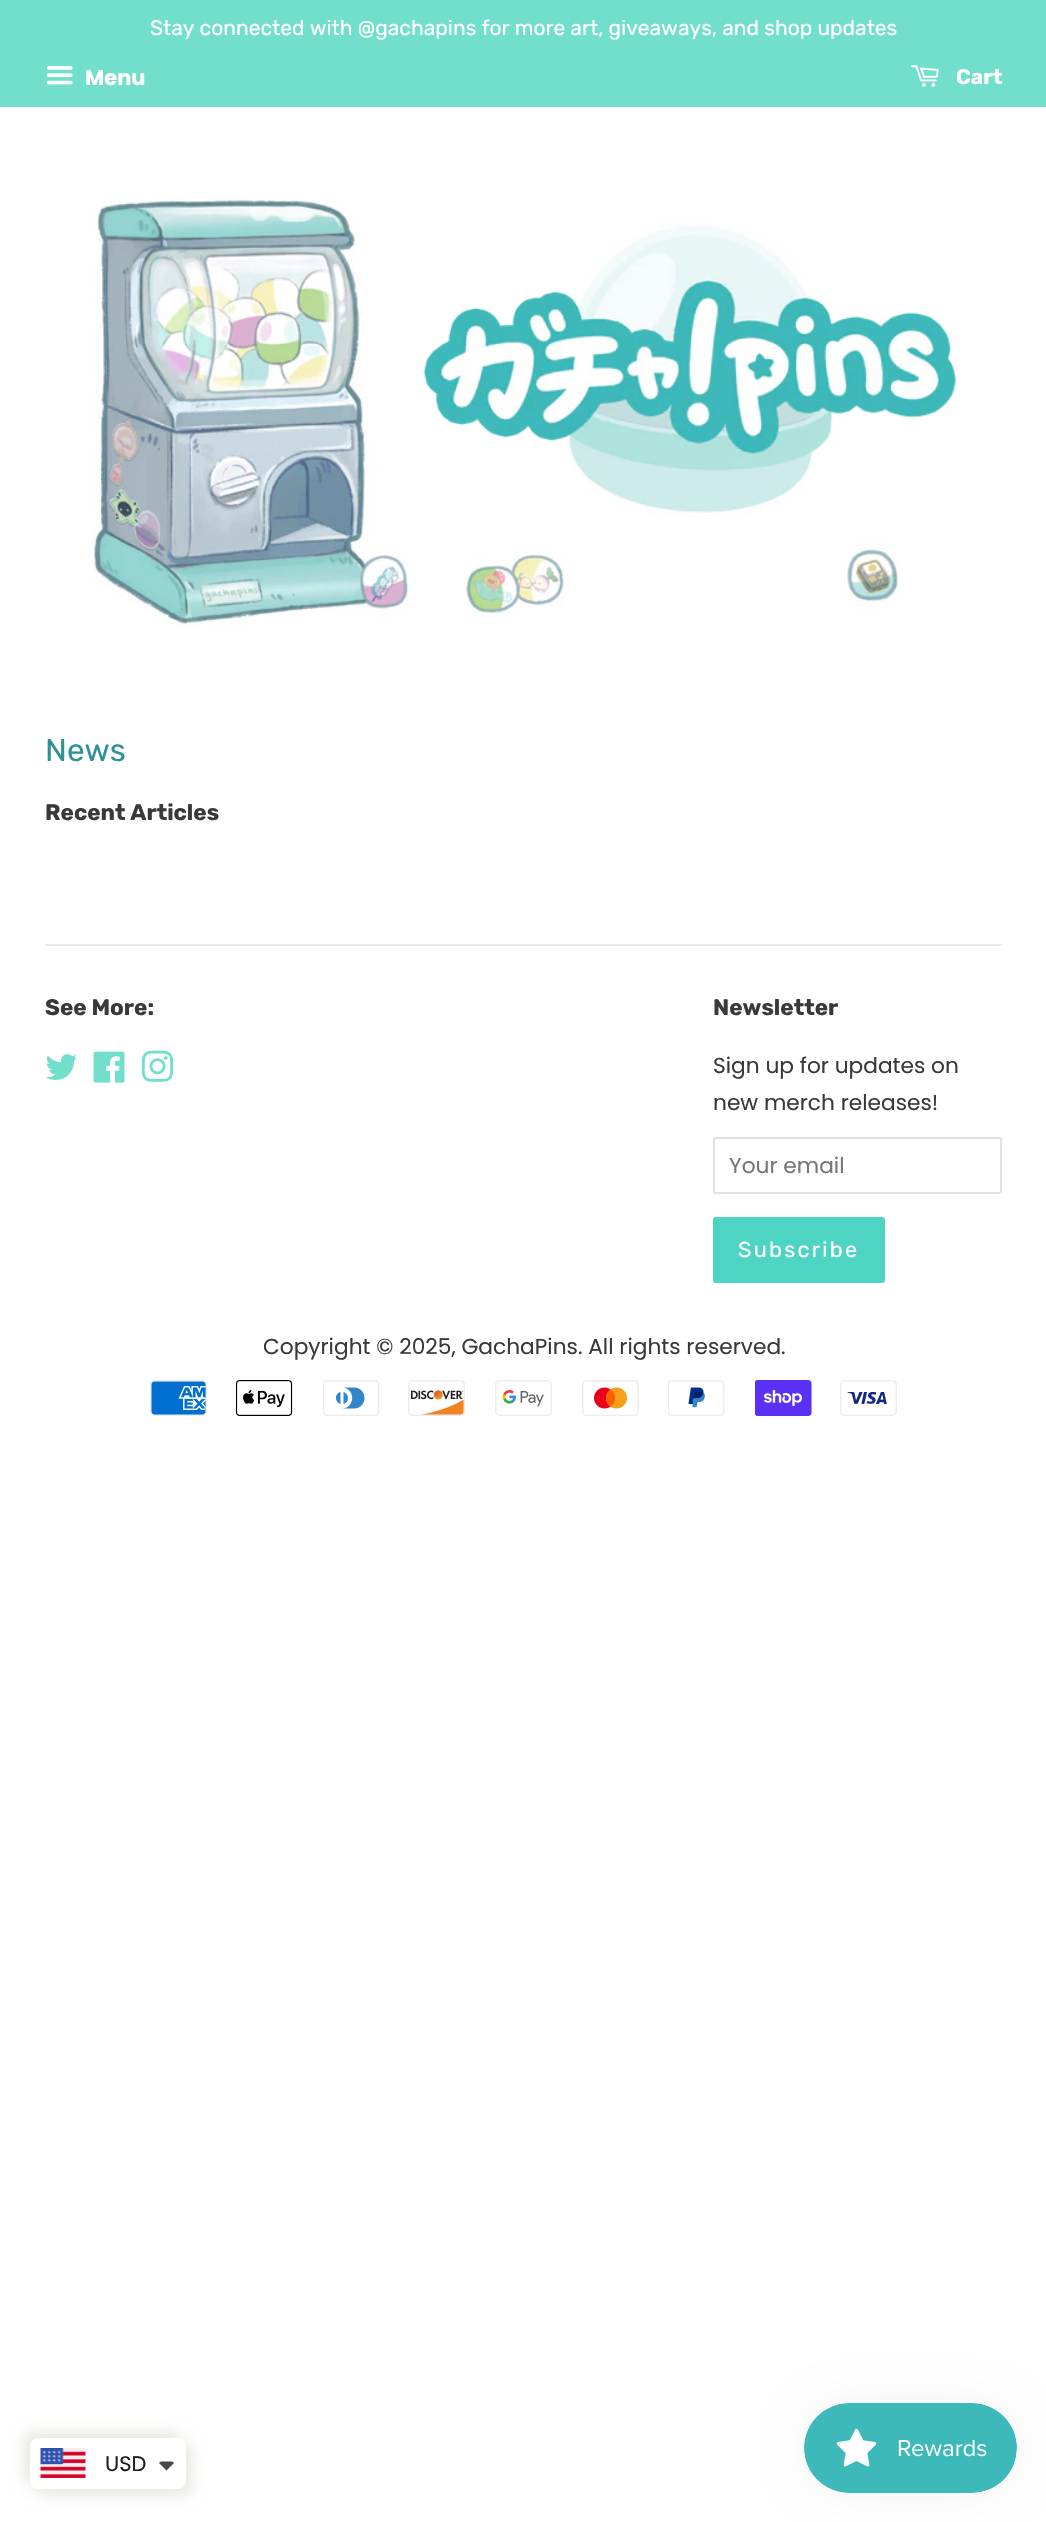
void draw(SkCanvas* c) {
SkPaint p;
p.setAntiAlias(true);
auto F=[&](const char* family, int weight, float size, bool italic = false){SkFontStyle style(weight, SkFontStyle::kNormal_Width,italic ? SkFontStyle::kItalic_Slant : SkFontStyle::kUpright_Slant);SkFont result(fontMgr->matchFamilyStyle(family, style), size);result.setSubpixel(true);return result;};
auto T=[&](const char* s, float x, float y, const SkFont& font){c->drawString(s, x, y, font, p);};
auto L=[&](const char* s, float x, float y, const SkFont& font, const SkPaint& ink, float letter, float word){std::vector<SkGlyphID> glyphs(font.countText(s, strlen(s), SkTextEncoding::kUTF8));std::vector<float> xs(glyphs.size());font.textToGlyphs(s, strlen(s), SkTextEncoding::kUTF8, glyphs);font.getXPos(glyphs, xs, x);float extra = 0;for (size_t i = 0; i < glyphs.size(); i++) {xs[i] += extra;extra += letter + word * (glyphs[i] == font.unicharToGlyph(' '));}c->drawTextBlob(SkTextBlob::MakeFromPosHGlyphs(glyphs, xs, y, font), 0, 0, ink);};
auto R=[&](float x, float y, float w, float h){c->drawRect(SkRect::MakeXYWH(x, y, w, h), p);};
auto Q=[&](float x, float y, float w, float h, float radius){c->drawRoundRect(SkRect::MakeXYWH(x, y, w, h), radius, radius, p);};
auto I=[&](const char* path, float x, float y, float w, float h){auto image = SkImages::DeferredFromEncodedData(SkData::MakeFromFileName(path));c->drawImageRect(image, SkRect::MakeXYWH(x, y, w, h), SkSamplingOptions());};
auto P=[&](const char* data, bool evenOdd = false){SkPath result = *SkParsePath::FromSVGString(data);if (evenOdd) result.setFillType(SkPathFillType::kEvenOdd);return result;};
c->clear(0xffffffff);
p.setColor(0xff71dfcb);
R(0,0,1046,107);
auto f1 = F("Rubik",400,21);
p.setColor(0xffffffff);
T("Stay connected with @gachapins for more art, giveaways, and shop updates",150,35,f1);
I("1.png",46,66,27,19);
auto f2 = F("Poppins",700,21);
T("Menu",85,85,f2);
I("2.png",911,65,28,22);
auto f3 = F("Rubik",700,21);
T("Cart",956,84,f3);
I("3.png",93,197,864,429);
auto f4 = F("Rubik",400,31.5);
p.setColor(0xff2e9196);
T("News",45,761,f4);
auto f5 = F("Rubik",700,22.5);
p.setColor(0xff393939);
T("Recent Articles",45,820,f5);
p.setColor(0xffebebeb);
R(45,944,957,2);
p.setColor(0xff393939);
T("See More:",45,1015,f5);
I("4.png",45,1054,32,26);
I("5.png",93,1051,32,32);
I("6.png",141,1050,33,32);
T("Newsletter",713,1015,f5);
auto f6 = F("Poppins",400,21.7);
T("Sign up for updates on",713,1073,f6);
T("new merch releases!",713,1110,f6);
p.setStroke(true);
p.setStrokeWidth(2);
p.setColor(0xffe1e1e1);
c->drawRoundRect(SkRect::MakeXYWH(714,1138,287,55),2,2,p);
p.setStroke(false);
p.setColor(0xff757575);
T("Your email",729,1173,f6);
p.setColor(0xff4dd4c2);
Q(713,1217,172,66,3);
auto f7 = F("Rubik",400,21.7);
p.setColor(0xffffffff);
L("Subscribe",738,1257,f7,p,2.25,0);
p.setColor(0xff393939);
T("Copyright © 2025, GachaPins. All rights reserved.",263,1354,f6);
I("7.png",150,1380,57,36);
I("8.png",236,1380,57,36);
I("9.png",323,1380,57,36);
I("10.png",408,1380,57,36);
I("11.png",495,1380,57,36);
I("12.png",582,1380,57,36);
I("13.png",668,1380,57,36);
I("14.png",755,1380,57,36);
I("15.png",840,1380,57,36);
p.setColor(0xffe8e8e2);
p.setMaskFilter(SkMaskFilter::MakeBlur(kNormal_SkBlurStyle, 7));
c->drawRoundRect(SkRect::MakeXYWH(24,2432,156,51),8,8,p);
p.setMaskFilter(nullptr);
p.setMaskFilter(SkMaskFilter::MakeBlur(kNormal_SkBlurStyle, 7));
c->drawRoundRect(SkRect::MakeXYWH(36,2444,156,51),8,8,p);
p.setMaskFilter(nullptr);
p.setColor(0xffffffff);
Q(30,2438,156,51,8);
I("16.png",40,2448,46,30);
auto f8 = F("Poppins",400,21);
p.setColor(0xff1e1e1e);
T("USD",105,2471,f8);
p.setColor(0xff474942);
c->drawPath(P("M162 2461.5c-1 0-2.5 .5-3 1.5l7.5 7.5l7.5-7.5c-.5-1-2-1.5-3-1.5z"),p);
p.setColor(0x0d000000);
p.setMaskFilter(SkMaskFilter::MakeBlur(kNormal_SkBlurStyle, 19));
c->drawRoundRect(SkRect::MakeXYWH(804,2403,213,90),45,45,p);
p.setMaskFilter(nullptr);
I("17.png",804,2403,213,90);
}
